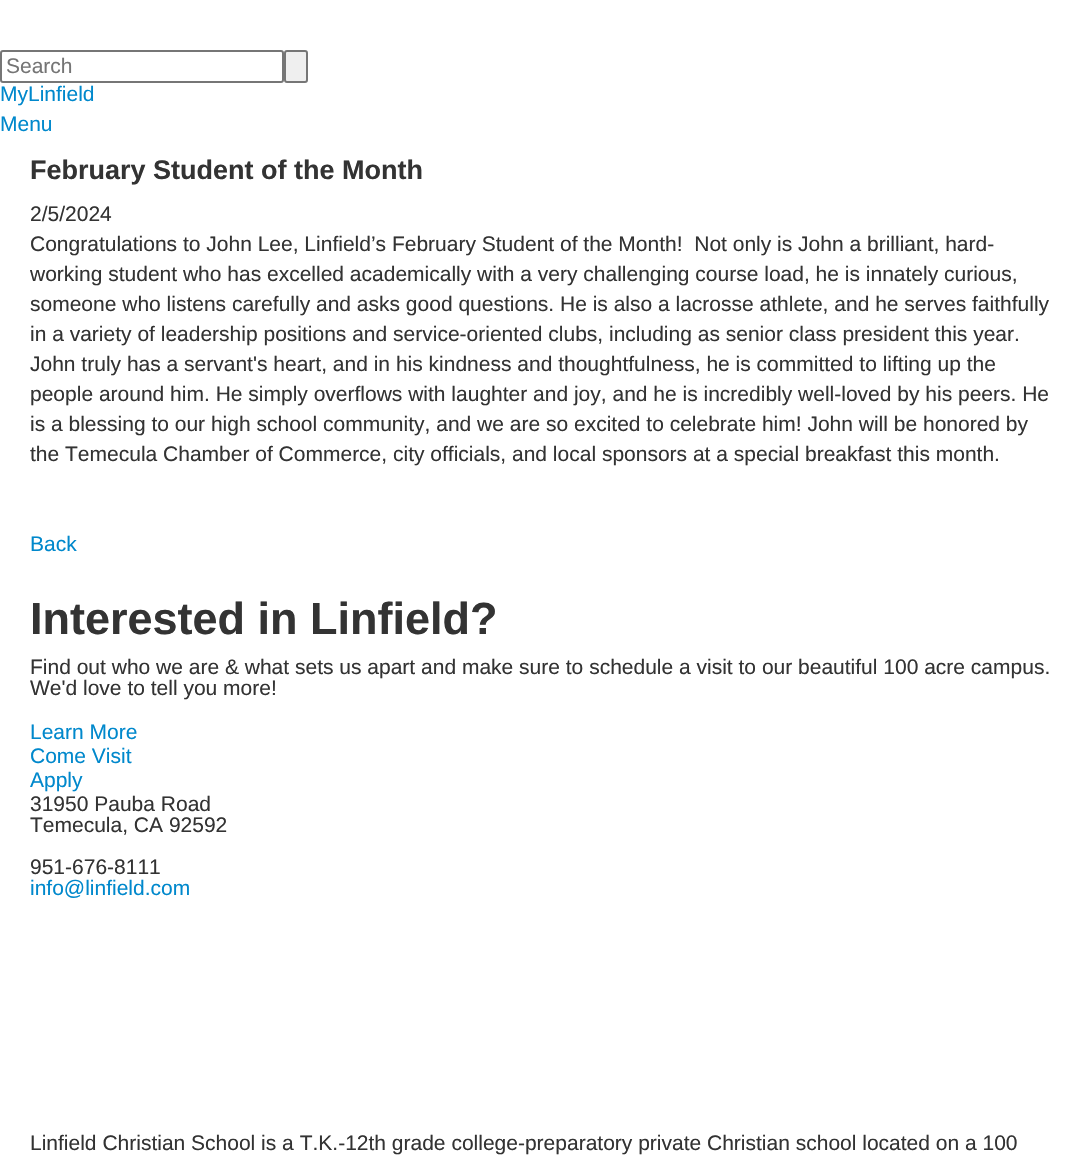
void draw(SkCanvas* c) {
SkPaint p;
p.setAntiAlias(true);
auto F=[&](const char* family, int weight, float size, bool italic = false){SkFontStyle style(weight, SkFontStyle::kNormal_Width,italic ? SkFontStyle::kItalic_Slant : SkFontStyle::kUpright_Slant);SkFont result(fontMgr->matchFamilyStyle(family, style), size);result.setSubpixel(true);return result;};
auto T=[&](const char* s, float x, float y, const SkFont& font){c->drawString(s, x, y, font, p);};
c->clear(0xffffffff);
p.setStroke(true);
p.setStrokeWidth(2);
p.setColor(0xff767676);
c->drawRoundRect(SkRect::MakeXYWH(1,51,282,31),2,2,p);
auto f1 = F("Liberation Sans",400,21);
p.setStroke(false);
p.setColor(0xff757575);
T("Search",6,73,f1);
p.setColor(0xffefefef);
c->drawRoundRect(SkRect::MakeXYWH(285,51,22,31),2,2,p);
p.setStroke(true);
p.setColor(0xff767676);
c->drawRoundRect(SkRect::MakeXYWH(285,51,22,31),2,2,p);
p.setStroke(false);
p.setColor(0xff0088cc);
T("MyLinfield",0,101,f1);
T("Menu",0,131,f1);
auto f2 = F("Liberation Sans",700,27);
p.setColor(0xff333333);
T("February Student of the Month",30,179,f2);
T("2/5/2024",30,221,f1);
T("Congratulations to John Lee, Linfield’s February Student of the Month!  Not only is John a brilliant, hard-",30,251,f1);
T("working student who has excelled academically with a very challenging course load, he is innately curious,",30,281,f1);
T("someone who listens carefully and asks good questions. He is also a lacrosse athlete, and he serves faithfully",30,311,f1);
T("in a variety of leadership positions and service-oriented clubs, including as senior class president this year.",30,341,f1);
T("John truly has a servant's heart, and in his kindness and thoughtfulness, he is committed to lifting up the",30,371,f1);
T("people around him. He simply overflows with laughter and joy, and he is incredibly well-loved by his peers. He",30,401,f1);
T("is a blessing to our high school community, and we are so excited to celebrate him! John will be honored by",30,431,f1);
T("the Temecula Chamber of Commerce, city officials, and local sponsors at a special breakfast this month.",30,461,f1);
p.setColor(0xff0088cc);
T("Back",30,551,f1);
auto f3 = F("Liberation Sans",700,45);
p.setColor(0xff333333);
T("Interested in Linfield?",30,634,f3);
T("Find out who we are & what sets us apart and make sure to schedule a visit to our beautiful 100 acre campus.",30,674,f1);
T("We'd love to tell you more!",30,695,f1);
p.setColor(0xff0088cc);
T("Learn More",30,739,f1);
T("Come Visit",30,763,f1);
T("Apply",30,787,f1);
p.setColor(0xff333333);
T("31950 Pauba Road",30,811,f1);
T("Temecula, CA 92592",30,832,f1);
T("951-676-8111",30,874,f1);
p.setColor(0xff0088cc);
T("info@linfield.com",30,895,f1);
p.setColor(0xff333333);
T("Linfield Christian School is a T.K.-12th grade college-preparatory private Christian school located on a 100",30,1150,f1);
}
